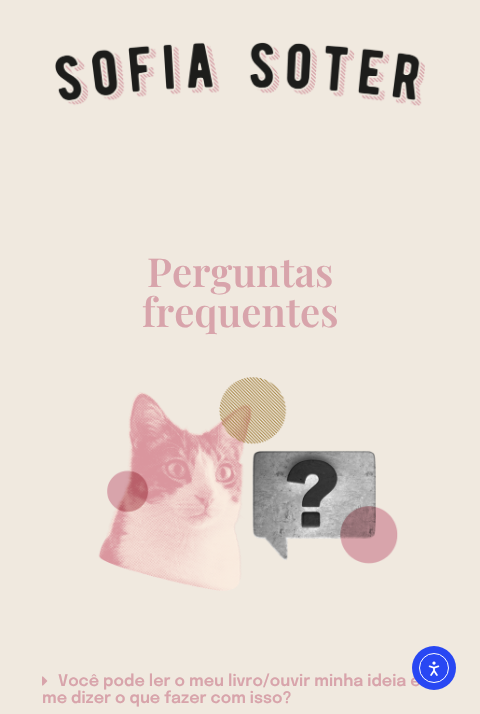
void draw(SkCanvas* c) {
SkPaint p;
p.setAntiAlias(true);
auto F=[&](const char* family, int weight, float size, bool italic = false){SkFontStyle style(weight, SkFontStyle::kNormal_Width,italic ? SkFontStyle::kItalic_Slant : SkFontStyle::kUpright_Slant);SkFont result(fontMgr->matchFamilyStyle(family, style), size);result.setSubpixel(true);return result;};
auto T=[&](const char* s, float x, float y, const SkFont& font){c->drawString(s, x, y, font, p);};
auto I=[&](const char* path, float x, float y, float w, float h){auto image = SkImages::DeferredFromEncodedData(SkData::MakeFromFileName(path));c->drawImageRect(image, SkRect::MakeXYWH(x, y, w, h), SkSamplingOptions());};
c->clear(0xfff0e9df);
I("1.png",55,42,370,64);
auto f1 = F("Playfair Display",600,40);
p.setColor(0xffd8a4ab);
T("Perguntas",147,287,f1);
T("frequentes",142,327,f1);
I("2.png",98,377,300,214);
I("3.png",42,676,6,10);
auto f2 = F("Epilogue",600,16);
T("Você pode ler o meu livro/ouvir minha ideia e",58,686,f2);
T("me dizer o que fazer com isso?",42,703,f2);
p.setColor(0xff2847f3);
c->drawCircle(434,668,22,p);
p.setStroke(true);
p.setStrokeWidth(1);
p.setColor(0xffffffff);
c->drawCircle(434,668,14.5,p);
I("4.png",428,661,12,15);
}
